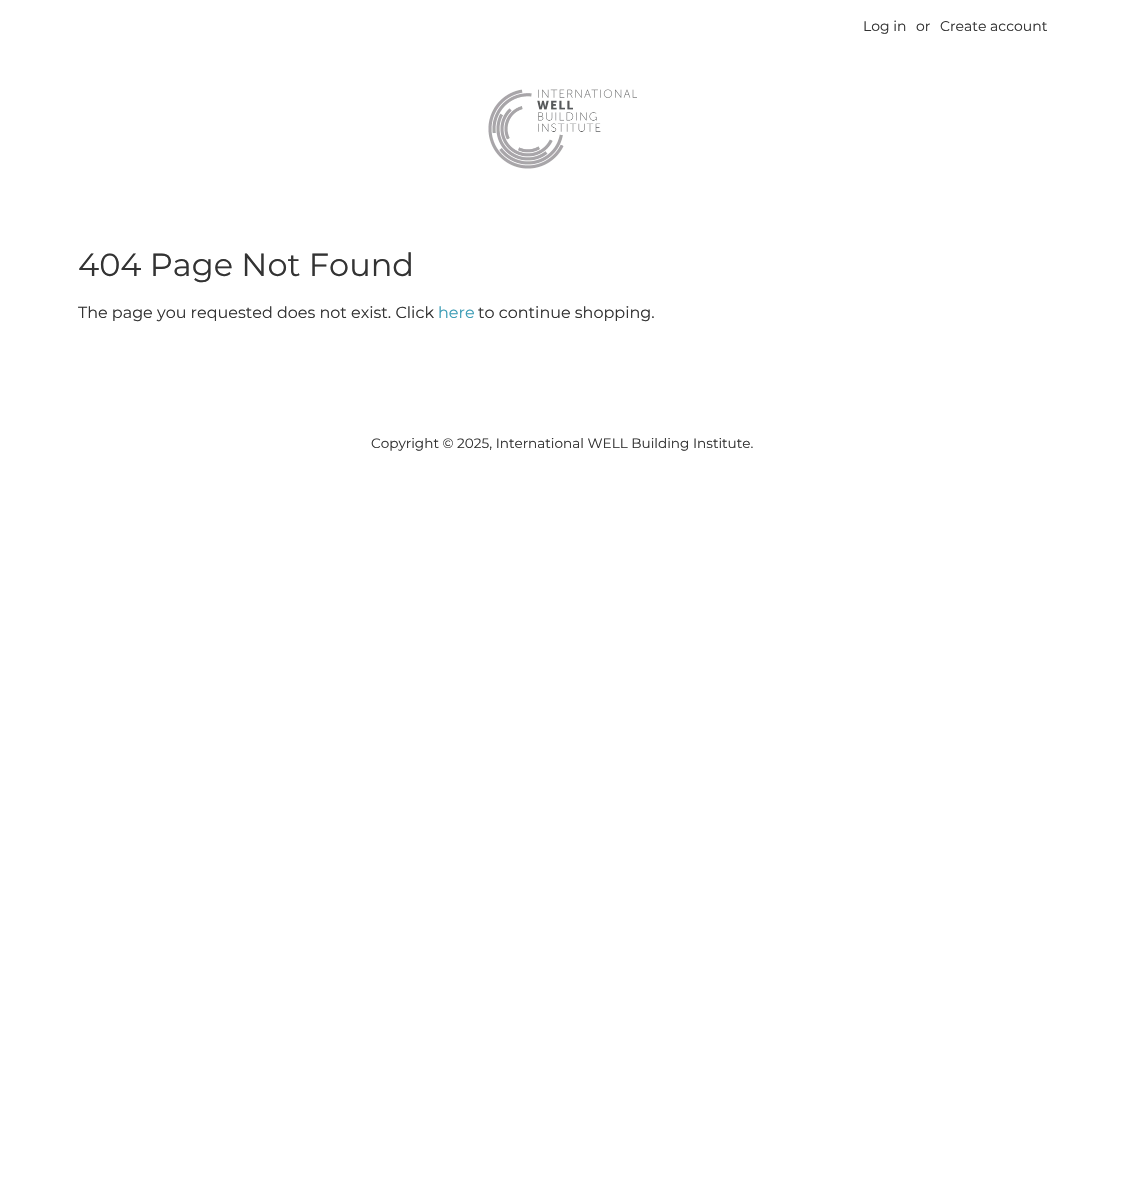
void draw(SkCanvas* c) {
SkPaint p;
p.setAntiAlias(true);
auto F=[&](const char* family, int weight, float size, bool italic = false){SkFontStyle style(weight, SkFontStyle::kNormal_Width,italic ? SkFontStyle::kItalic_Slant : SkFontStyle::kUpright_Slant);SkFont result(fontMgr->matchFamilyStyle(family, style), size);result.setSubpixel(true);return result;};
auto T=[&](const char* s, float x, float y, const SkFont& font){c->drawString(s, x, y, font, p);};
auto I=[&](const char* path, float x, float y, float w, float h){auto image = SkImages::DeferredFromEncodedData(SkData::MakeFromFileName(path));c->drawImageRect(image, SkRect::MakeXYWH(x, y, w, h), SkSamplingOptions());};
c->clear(0xffffffff);
auto f1 = F("Montserrat",400,14);
p.setColor(0xff333333);
T("Log in",863,31,f1);
T("or",916,31,f1);
T("Create account",940,31,f1);
I("1.png",488,89,149,80);
auto f2 = F("Montserrat",400,32);
T("404 Page Not Found",78,276,f2);
auto f3 = F("Montserrat",400,16);
T("The page you requested does not exist. Click",78,318,f3);
p.setColor(0xff3d9db6);
T("here",438,318,f3);
p.setColor(0xff333333);
T("to continue shopping.",478,318,f3);
auto f4 = F("Montserrat",400,13.6);
T("Copyright © 2025, International WELL Building Institute.",371,448,f4);
}
